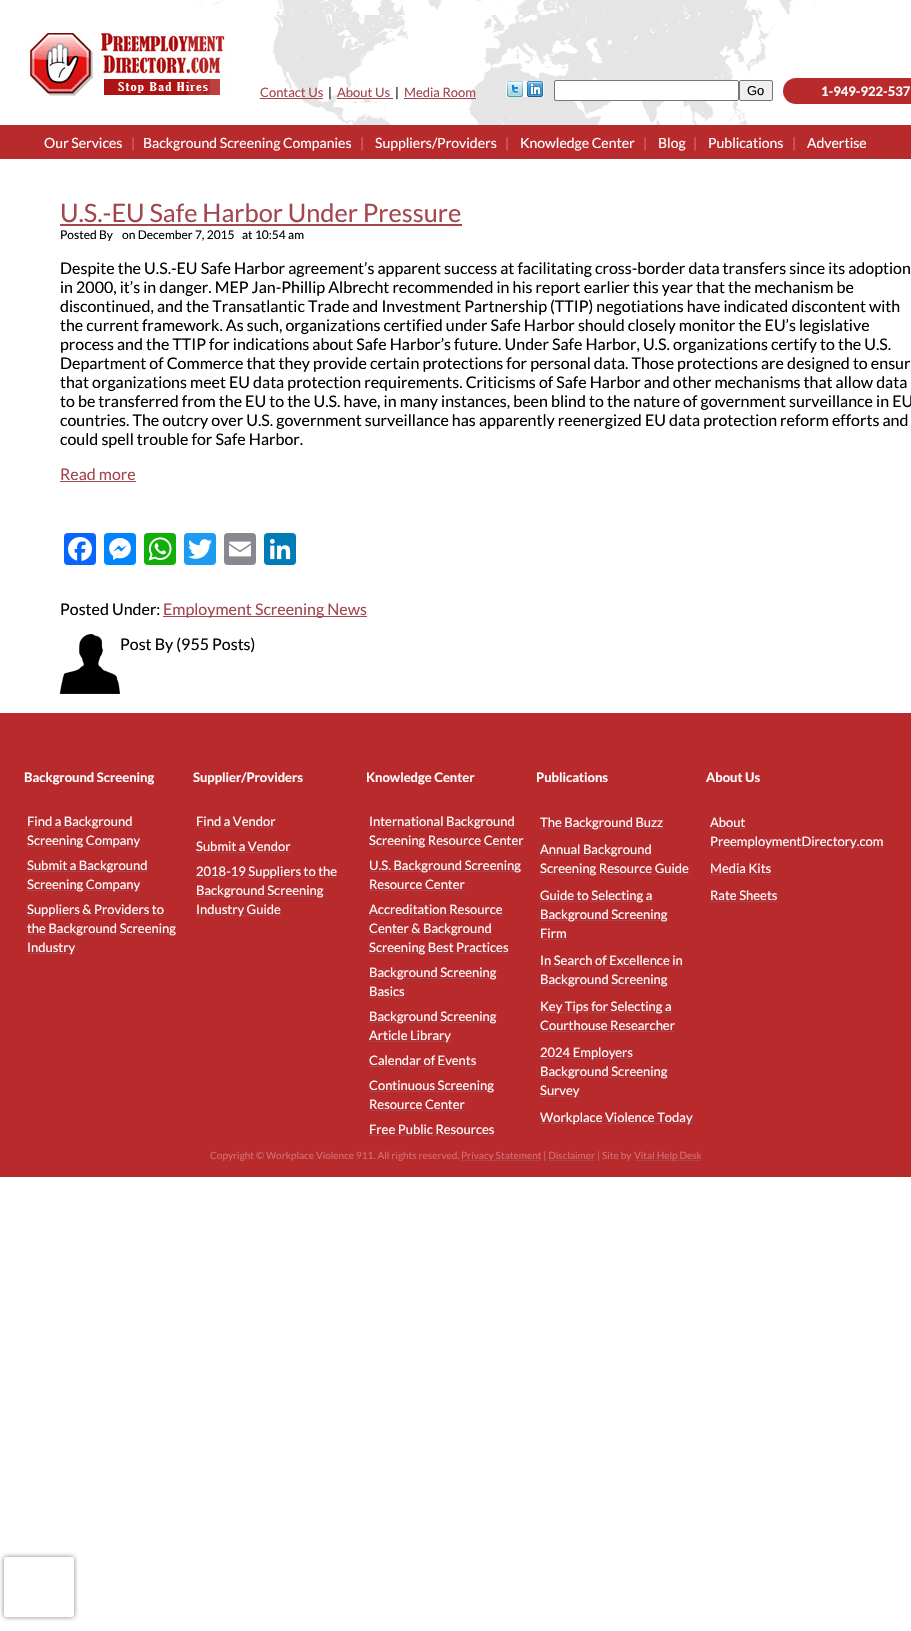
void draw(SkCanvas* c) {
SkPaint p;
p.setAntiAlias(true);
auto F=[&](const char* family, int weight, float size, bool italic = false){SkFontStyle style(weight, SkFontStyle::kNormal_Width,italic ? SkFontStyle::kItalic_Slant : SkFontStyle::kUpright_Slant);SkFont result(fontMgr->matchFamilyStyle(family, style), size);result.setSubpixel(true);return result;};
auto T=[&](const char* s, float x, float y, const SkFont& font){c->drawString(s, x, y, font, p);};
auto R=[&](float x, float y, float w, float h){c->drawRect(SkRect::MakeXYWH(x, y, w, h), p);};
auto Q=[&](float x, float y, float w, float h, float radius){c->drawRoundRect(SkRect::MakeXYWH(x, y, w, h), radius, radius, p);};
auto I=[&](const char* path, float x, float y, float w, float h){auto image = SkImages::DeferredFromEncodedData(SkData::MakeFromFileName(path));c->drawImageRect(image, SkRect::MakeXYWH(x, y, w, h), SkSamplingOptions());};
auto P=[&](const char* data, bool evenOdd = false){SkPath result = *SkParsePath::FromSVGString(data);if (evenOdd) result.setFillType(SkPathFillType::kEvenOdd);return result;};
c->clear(0xffffffff);
I("1.png",26,0,791,125);
auto f1 = F("Lato",400,13);
p.setColor(0xffa3464e);
T("Contact Us",260,97,f1);
R(260,98,63,1);
p.setColor(0xff000000);
T("|",328,97,f1);
p.setColor(0xffa3464e);
T("About Us",337,97,f1);
R(337,98,56,1);
p.setColor(0xff000000);
T("|",395,97,f1);
p.setColor(0xffa3464e);
T("Media Room",404,97,f1);
R(404,98,72,1);
I("2.png",506,81,38,16);
p.setColor(0xffffffff);
c->drawRoundRect(SkRect::MakeXYWH(554.5,80.5,184,20),1.5,1.5,p);
p.setStroke(true);
p.setStrokeWidth(1);
p.setColor(0xff767676);
c->drawRoundRect(SkRect::MakeXYWH(554.5,80.5,184,20),1.5,1.5,p);
p.setStroke(false);
p.setColor(0xffefefef);
c->drawRoundRect(SkRect::MakeXYWH(739.5,80.5,33,20),1.5,1.5,p);
p.setStroke(true);
p.setColor(0xff767676);
c->drawRoundRect(SkRect::MakeXYWH(739.5,80.5,33,20),1.5,1.5,p);
auto f2 = F("Liberation Sans",400,13);
p.setStroke(false);
p.setColor(0xff000000);
T("Go",747,95,f2);
p.setColor(0xffb92a2c);
Q(783,78,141,26,13);
auto f3 = F("Lato",700,13);
p.setColor(0xffffffff);
T("1-949-922-537",821,96,f3);
p.setColor(0xffb92a2c);
R(0,125,911,34);
auto f4 = F("Lato",400,14);
p.setColor(0xffffffff);
T("Our Services",44,148,f4);
p.setColor(0xffd17173);
T("|",131,148,f4);
p.setColor(0xffffffff);
T("Background Screening Companies",143,148,f4);
p.setColor(0xffd17173);
T("|",360,148,f4);
p.setColor(0xffffffff);
T("Suppliers/Providers",375,148,f4);
p.setColor(0xffd17173);
T("|",505,148,f4);
p.setColor(0xffffffff);
T("Knowledge Center",520,148,f4);
p.setColor(0xffd17173);
T("|",643,148,f4);
p.setColor(0xffffffff);
T("Blog",658,148,f4);
p.setColor(0xffd17173);
T("|",693,148,f4);
p.setColor(0xffffffff);
T("Publications",708,148,f4);
p.setColor(0xffd17173);
T("|",792,148,f4);
p.setColor(0xffffffff);
T("Advertise",807,148,f4);
auto f5 = F("Lato",400,25.3);
p.setColor(0xffa3464e);
T("U.S.-EU Safe Harbor Under Pressure",60,222,f5);
R(60,224,402,2);
auto f6 = F("Lato",400,12);
p.setColor(0xff000000);
T("Posted By",60,239,f6);
T("on December 7, 2015",122,239,f6);
T("at 10:54 am",242,239,f6);
auto f7 = F("Lato",400,16);
T("Despite the U.S.-EU Safe Harbor agreement’s apparent success at facilitating cross-border data transfers since its adoption",60,274,f7);
T("in 2000, it’s in danger. MEP Jan-Phillip Albrecht recommended in his report earlier this year that the mechanism be",60,293,f7);
T("discontinued, and the Transatlantic Trade and Investment Partnership (TTIP) negotiations have indicated discontent with",60,312,f7);
T("the current framework. As such, organizations certified under Safe Harbor should closely monitor the EU’s legislative",60,331,f7);
T("process and the TTIP for indications about Safe Harbor’s future. Under Safe Harbor, U.S. organizations certify to the U.S.",60,350,f7);
T("Department of Commerce that they provide certain protections for personal data. Those protections are designed to ensur",60,369,f7);
T("that organizations meet EU data protection requirements. Criticisms of Safe Harbor and other mechanisms that allow data",60,388,f7);
T("to be transferred from the EU to the U.S. have, in many instances, been blind to the nature of government surveillance in EU",60,407,f7);
T("countries. The outcry over U.S. government surveillance has apparently reenergized EU data protection reform efforts and",60,426,f7);
T("could spell trouble for Safe Harbor.",60,445,f7);
p.setColor(0xffa3464e);
T("Read more",60,480,f7);
R(60,481,76,1);
p.setColor(0xff0866ff);
Q(64,533,32,32,4);
I("3.png",68,537,24,24);
p.setColor(0xff0084ff);
Q(104,533,32,32,4);
I("4.png",109,538,22,22);
p.setColor(0xff12af0a);
Q(144,533,32,32,4);
I("5.png",148,537,24,24);
p.setColor(0xff1d9bf0);
Q(184,533,32,32,4);
I("6.png",188,539,24,20);
p.setColor(0xff888990);
Q(224,533,32,32,4);
I("7.png",229,541,22,16);
p.setColor(0xff007bb5);
Q(264,533,32,32,4);
I("8.png",269,538,22,22);
p.setColor(0xff000000);
T("Posted Under:",60,615,f7);
p.setColor(0xffa3464e);
R(163,616,204,1);
T("Employment Screening News",163,615,f7);
I("9.png",60,634,60,60);
p.setColor(0xff000000);
T("Post By (955 Posts)",120,650,f7);
p.setColor(0xffb92a2c);
R(0,713,911,464);
p.setColor(0xffffffff);
T("Background Screening",24,782,f3);
T("Supplier/Providers",193,782,f3);
T("Knowledge Center",366,782,f3);
T("Publications",536,782,f3);
T("About Us",706,782,f3);
p.setColor(0xffa3464e);
R(27,827,105,1);
p.setColor(0xffffffff);
T("Find a Background",27,826,f1);
p.setColor(0xffa3464e);
R(27,846,113,1);
p.setColor(0xffffffff);
T("Screening Company",27,845,f1);
p.setColor(0xffa3464e);
R(27,871,120,1);
p.setColor(0xffffffff);
T("Submit a Background",27,870,f1);
p.setColor(0xffa3464e);
R(27,890,113,1);
p.setColor(0xffffffff);
T("Screening Company",27,889,f1);
p.setColor(0xffa3464e);
R(27,915,136,1);
p.setColor(0xffffffff);
T("Suppliers & Providers to",27,914,f1);
p.setColor(0xffa3464e);
R(27,934,148,1);
p.setColor(0xffffffff);
T("the Background Screening",27,933,f1);
p.setColor(0xffa3464e);
R(27,953,48,1);
p.setColor(0xffffffff);
T("Industry",27,952,f1);
T("Find a Vendor",196,826,f1);
p.setColor(0xffa3464e);
R(196,827,79,1);
p.setColor(0xffffffff);
T("Submit a Vendor",196,851,f1);
p.setColor(0xffa3464e);
R(196,852,94,1);
R(196,877,141,1);
p.setColor(0xffffffff);
T("2018-19 Suppliers to the",196,876,f1);
p.setColor(0xffa3464e);
R(196,896,127,1);
p.setColor(0xffffffff);
T("Background Screening",196,895,f1);
p.setColor(0xffa3464e);
R(196,915,85,1);
p.setColor(0xffffffff);
T("Industry Guide",196,914,f1);
p.setColor(0xffa3464e);
R(369,827,146,1);
p.setColor(0xffffffff);
T("International Background",369,826,f1);
p.setColor(0xffa3464e);
R(369,846,155,1);
p.setColor(0xffffffff);
T("Screening Resource Center",369,845,f1);
p.setColor(0xffa3464e);
R(369,871,152,1);
p.setColor(0xffffffff);
T("U.S. Background Screening",369,870,f1);
T("Resource Center",369,889,f1);
p.setColor(0xffa3464e);
R(369,890,96,1);
p.setColor(0xffffffff);
T("Accreditation Resource",369,914,f1);
p.setColor(0xffa3464e);
R(369,915,134,1);
R(369,934,123,1);
p.setColor(0xffffffff);
T("Center & Background",369,933,f1);
p.setColor(0xffa3464e);
R(369,953,140,1);
p.setColor(0xffffffff);
T("Screening Best Practices",369,952,f1);
p.setColor(0xffa3464e);
R(369,978,128,1);
p.setColor(0xffffffff);
T("Background Screening",369,977,f1);
T("Basics",369,996,f1);
p.setColor(0xffa3464e);
R(369,997,36,1);
R(369,1022,128,1);
p.setColor(0xffffffff);
T("Background Screening",369,1021,f1);
p.setColor(0xffa3464e);
R(369,1041,82,1);
p.setColor(0xffffffff);
T("Article Library",369,1040,f1);
T("Calendar of Events",369,1065,f1);
p.setColor(0xffa3464e);
R(369,1066,107,1);
R(369,1091,125,1);
p.setColor(0xffffffff);
T("Continuous Screening",369,1090,f1);
T("Resource Center",369,1109,f1);
p.setColor(0xffa3464e);
R(369,1110,96,1);
p.setColor(0xffffffff);
T("Free Public Resources",369,1134,f1);
p.setColor(0xffa3464e);
R(369,1135,126,1);
R(540,828,124,1);
p.setColor(0xffffffff);
T("The Background Buzz",540,827,f1);
p.setColor(0xffa3464e);
R(540,855,112,1);
p.setColor(0xffffffff);
T("Annual Background",540,854,f1);
p.setColor(0xffa3464e);
R(540,874,149,1);
p.setColor(0xffffffff);
T("Screening Resource Guide",540,873,f1);
p.setColor(0xffa3464e);
R(540,901,113,1);
p.setColor(0xffffffff);
T("Guide to Selecting a",540,900,f1);
p.setColor(0xffa3464e);
R(540,920,128,1);
p.setColor(0xffffffff);
T("Background Screening",540,919,f1);
T("Firm",540,938,f1);
p.setColor(0xffa3464e);
R(540,939,27,1);
p.setColor(0xffffffff);
T("In Search of Excellence in",540,965,f1);
p.setColor(0xffa3464e);
R(540,966,143,1);
R(540,985,128,1);
p.setColor(0xffffffff);
T("Background Screening",540,984,f1);
p.setColor(0xffa3464e);
R(540,1012,132,1);
p.setColor(0xffffffff);
T("Key Tips for Selecting a",540,1011,f1);
T("Courthouse Researcher",540,1030,f1);
p.setColor(0xffa3464e);
R(540,1031,135,1);
R(540,1058,93,1);
p.setColor(0xffffffff);
T("2024 Employers",540,1057,f1);
p.setColor(0xffa3464e);
R(540,1077,128,1);
p.setColor(0xffffffff);
T("Background Screening",540,1076,f1);
p.setColor(0xffa3464e);
R(540,1096,40,1);
p.setColor(0xffffffff);
T("Survey",540,1095,f1);
p.setColor(0xffa3464e);
R(540,1123,153,1);
p.setColor(0xffffffff);
T("Workplace Violence Today",540,1122,f1);
T("About",710,827,f1);
p.setColor(0xffa3464e);
R(710,828,36,1);
R(710,847,173,1);
p.setColor(0xffffffff);
T("PreemploymentDirectory.com",710,846,f1);
T("Media Kits",710,873,f1);
p.setColor(0xffa3464e);
R(710,874,61,1);
p.setColor(0xffffffff);
T("Rate Sheets",710,900,f1);
p.setColor(0xffa3464e);
R(710,901,67,1);
auto f8 = F("Lato",400,10);
p.setColor(0xffd17173);
T("Copyright © Workplace Violence 911. All rights reserved.",210,1159,f8);
p.setColor(0xffa3464e);
R(461,1160,81,1);
p.setColor(0xffd17173);
T("Privacy Statement | Disclaimer | Site by",461,1159,f8);
p.setColor(0xffa3464e);
R(548,1160,47,1);
R(634,1160,67,1);
p.setColor(0xffd17173);
T("Vital Help Desk",634,1159,f8);
c->save();
c->clipPath(P("M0 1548h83v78h-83zm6 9h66c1 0 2 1 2 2v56c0 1-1 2-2 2h-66c-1 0-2-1-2-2v-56c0-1 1-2 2-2z",true),true);
p.setColor(0xff808080);
p.setMaskFilter(SkMaskFilter::MakeBlur(kNormal_SkBlurStyle, 2.5));
c->drawRoundRect(SkRect::MakeXYWH(4,1557,70,60),2,2,p);
p.setMaskFilter(nullptr);
c->restore();
}
